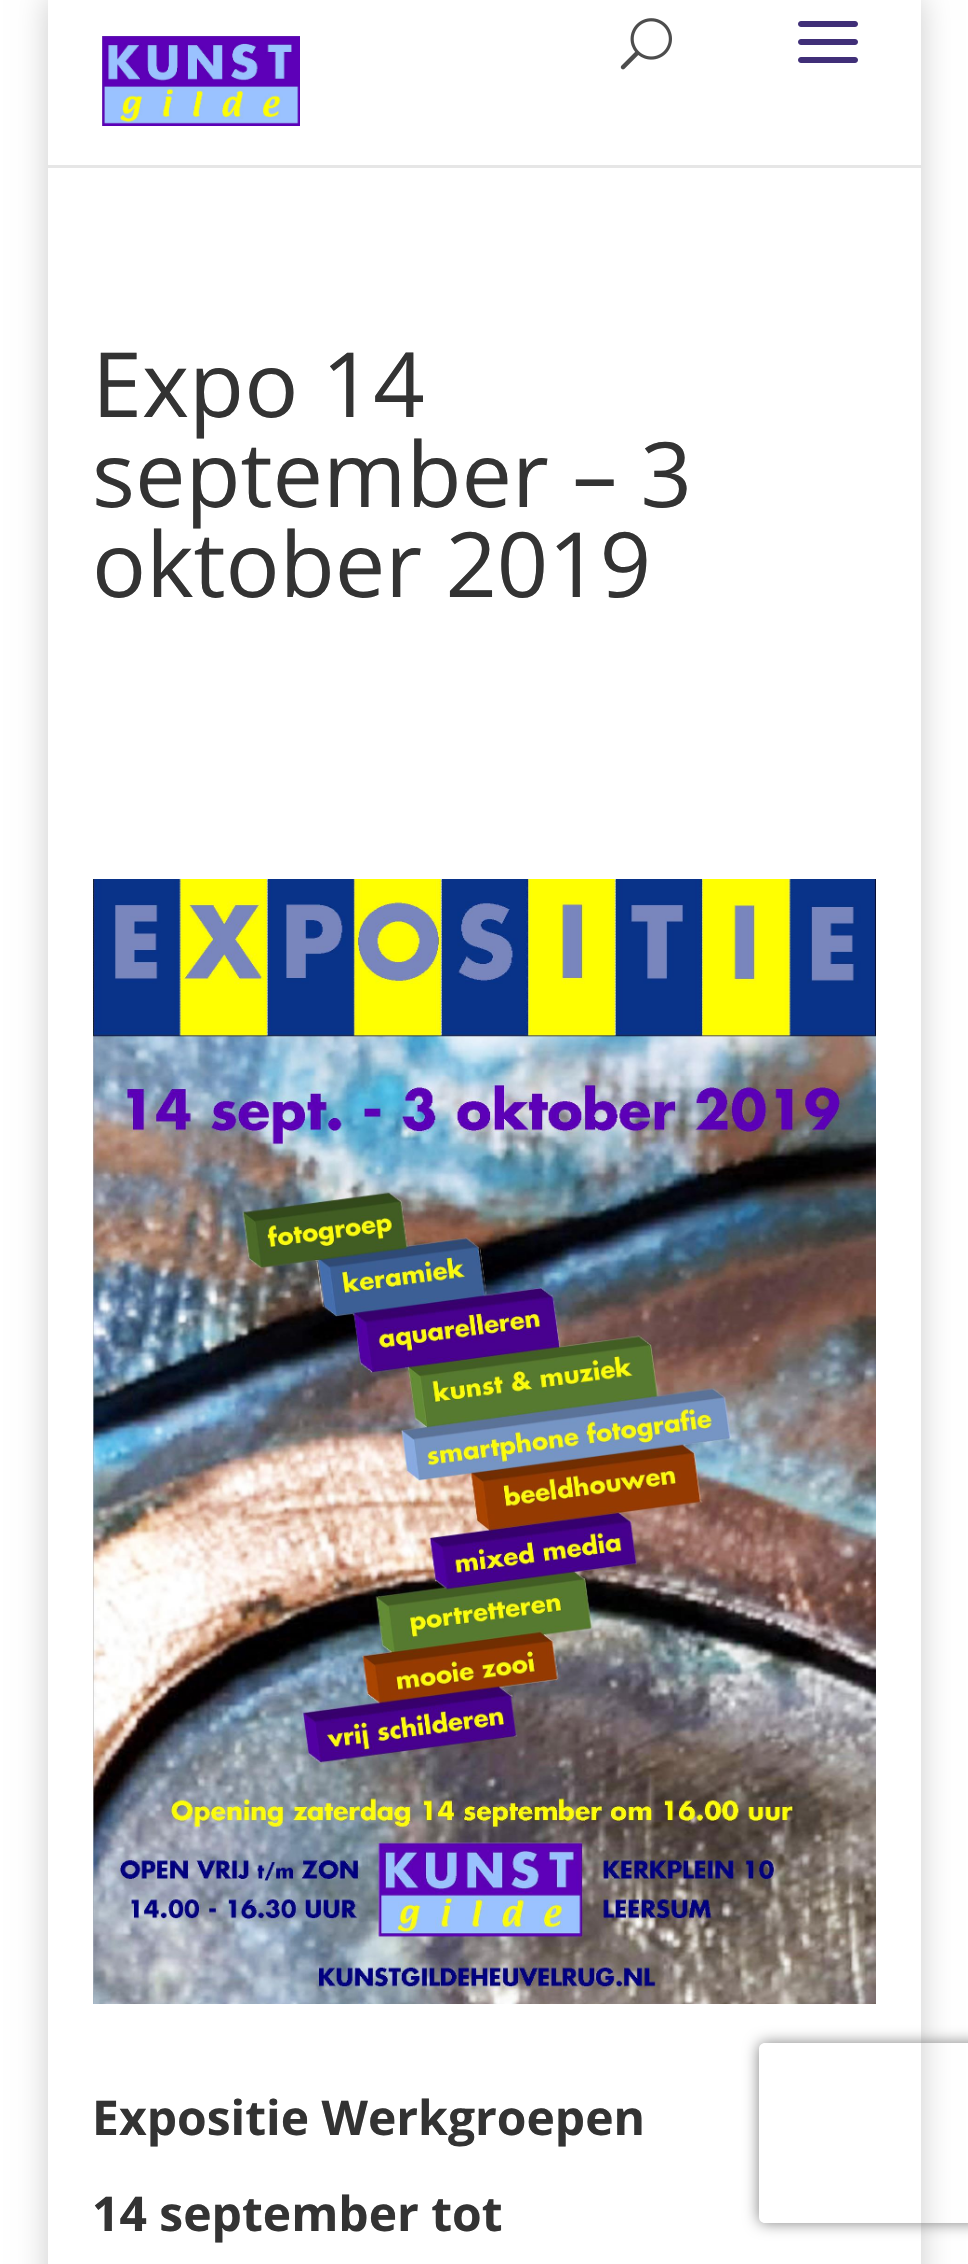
void draw(SkCanvas* c) {
SkPaint p;
p.setAntiAlias(true);
auto F=[&](const char* family, int weight, float size, bool italic = false){SkFontStyle style(weight, SkFontStyle::kNormal_Width,italic ? SkFontStyle::kItalic_Slant : SkFontStyle::kUpright_Slant);SkFont result(fontMgr->matchFamilyStyle(family, style), size);result.setSubpixel(true);return result;};
auto T=[&](const char* s, float x, float y, const SkFont& font){c->drawString(s, x, y, font, p);};
auto R=[&](float x, float y, float w, float h){c->drawRect(SkRect::MakeXYWH(x, y, w, h), p);};
auto I=[&](const char* path, float x, float y, float w, float h){auto image = SkImages::DeferredFromEncodedData(SkData::MakeFromFileName(path));c->drawImageRect(image, SkRect::MakeXYWH(x, y, w, h), SkSamplingOptions());};
auto P=[&](const char* data, bool evenOdd = false){SkPath result = *SkParsePath::FromSVGString(data);if (evenOdd) result.setFillType(SkPathFillType::kEvenOdd);return result;};
c->clear(0xffffffff);
c->save();
c->clipPath(P("M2 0h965v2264h-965zm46-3h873v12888h-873z",true),true);
p.setColor(0x33000000);
p.setMaskFilter(SkMaskFilter::MakeBlur(kNormal_SkBlurStyle, 15));
c->drawRect(SkRect::MakeXYWH(48,-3,873,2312),p);
p.setMaskFilter(nullptr);
c->restore();
p.setColor(0xffe6e6e6);
R(48,165,873,3);
I("1.png",102,36,198,90);
I("2.png",620,18,52,52);
I("3.png",798,21,60,42);
auto f1 = F("Open Sans",400,90);
p.setColor(0xff333333);
T("Expo 14",92,417,f1);
T("september – 3",92,507,f1);
T("oktober 2019",92,597,f1);
I("4.png",93,879,783,1125);
auto f2 = F("Open Sans",700,48);
T("Expositie Werkgroepen",92,2135,f2);
T("14 september tot",92,2231,f2);
c->save();
c->clipPath(P("M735 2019h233v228h-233zm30 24h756c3.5 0 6 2.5 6 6v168c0 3.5-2.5 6-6 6h-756c-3.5 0-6-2.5-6-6v-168c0-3.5 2.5-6 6-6z",true),true);
p.setColor(0xff808080);
p.setMaskFilter(SkMaskFilter::MakeBlur(kNormal_SkBlurStyle, 7.5));
c->drawRoundRect(SkRect::MakeXYWH(759,2043,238,180),6,6,p);
p.setMaskFilter(nullptr);
c->restore();
}
